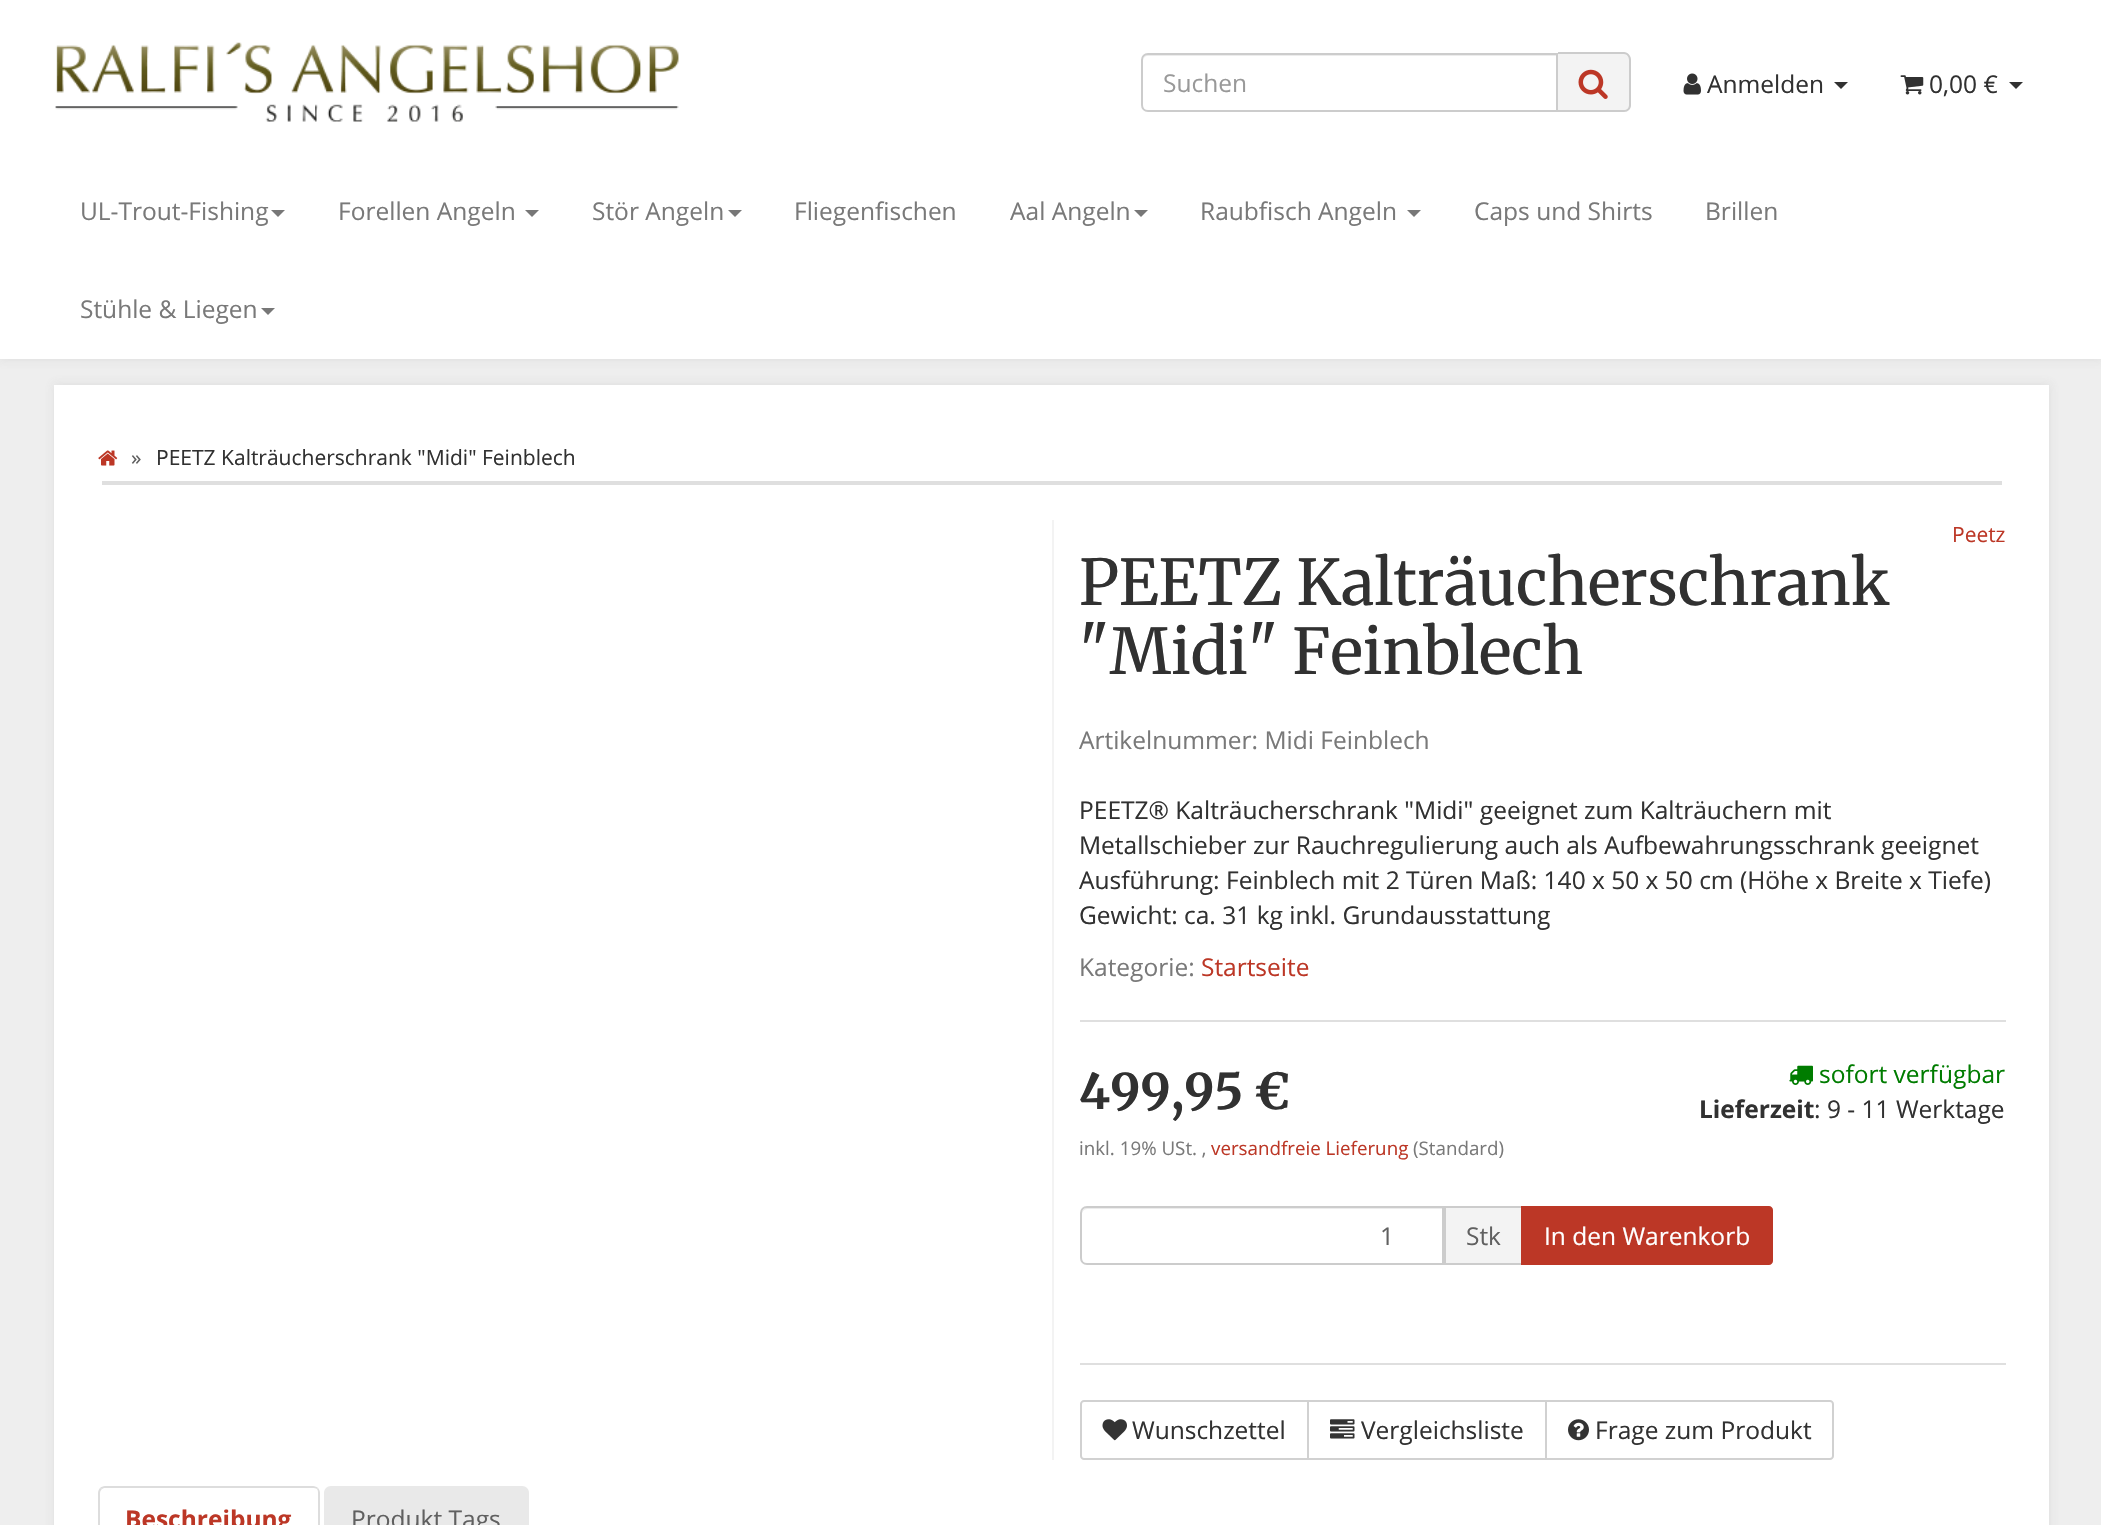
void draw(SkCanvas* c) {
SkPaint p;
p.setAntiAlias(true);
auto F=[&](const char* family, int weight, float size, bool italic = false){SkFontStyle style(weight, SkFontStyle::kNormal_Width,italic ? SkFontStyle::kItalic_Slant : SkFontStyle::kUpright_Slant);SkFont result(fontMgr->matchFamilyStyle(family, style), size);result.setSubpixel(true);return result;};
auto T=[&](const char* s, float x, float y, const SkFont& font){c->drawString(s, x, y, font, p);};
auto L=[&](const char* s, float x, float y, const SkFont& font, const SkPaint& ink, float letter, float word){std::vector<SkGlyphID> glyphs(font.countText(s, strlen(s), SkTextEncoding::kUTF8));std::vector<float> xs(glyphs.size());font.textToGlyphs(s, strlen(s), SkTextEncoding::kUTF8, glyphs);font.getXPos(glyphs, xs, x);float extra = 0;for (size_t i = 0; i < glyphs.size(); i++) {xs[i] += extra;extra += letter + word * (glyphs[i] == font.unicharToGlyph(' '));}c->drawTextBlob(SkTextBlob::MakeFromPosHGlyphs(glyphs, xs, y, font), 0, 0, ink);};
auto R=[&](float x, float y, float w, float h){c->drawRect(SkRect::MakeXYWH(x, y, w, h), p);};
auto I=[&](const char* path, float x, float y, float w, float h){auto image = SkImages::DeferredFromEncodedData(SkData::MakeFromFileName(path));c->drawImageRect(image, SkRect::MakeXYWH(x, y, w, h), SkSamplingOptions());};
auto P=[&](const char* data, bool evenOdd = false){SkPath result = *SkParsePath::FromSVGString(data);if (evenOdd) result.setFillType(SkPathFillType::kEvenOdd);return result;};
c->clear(0xffeeeeee);
p.setColor(0x1a6a6a6a);
p.setMaskFilter(SkMaskFilter::MakeBlur(kNormal_SkBlurStyle, 4.5));
c->drawRect(SkRect::MakeXYWH(-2,-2,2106,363),p);
p.setMaskFilter(nullptr);
p.setColor(0xffffffff);
R(0,0,2101,359);
I("1.png",55,42,624,80);
p.setColor(0xffececec);
c->drawPath(P("M1148 56h408v-2h-408c-4 0-5 4-5 7c0-3 2-5 5-5z"),p);
p.setStroke(true);
p.setStrokeWidth(2);
p.setColor(0xffcccccc);
c->drawPath(P("M1148 54h409v57h-409c-3.5 0-6-2.5-6-6v-45c0-3.5 2.5-6 6-6z"),p);
auto f1 = F("Open Sans",400,24.5);
p.setStroke(false);
p.setColor(0xff999999);
T("Suchen",1163,92,f1);
p.setColor(0xfff3f3f3);
c->drawPath(P("M1558 53h66c4 0 7 3 7 7v45c0 4-3 7-7 7h-66z"),p);
p.setColor(0xffcccccc);
c->drawPath(P("M1558 52h66c4 0 7 4 7 8v45c0 4-3 7-7 7h-66zm0 2h66c3 0 5 3 5 6v45c0 3-2 5-5 5h-66z",true),p);
I("2.png",1578,69,30,30);
I("3.png",1683,73,18,22);
p.setColor(0xff313131);
T("Anmelden",1707,93,f1);
c->drawPath(P("M1834 82h14l-7 7z"),p);
I("4.png",1900,75,24,20);
T("0,00 €",1929,93,f1);
c->drawPath(P("M2009 82h14l-7 7z"),p);
p.setColor(0xff797979);
T("UL-Trout-Fishing",80,220,f1);
p.setColor(0xff777777);
c->drawPath(P("M271 210h14l-7 7z"),p);
p.setColor(0xff797979);
T("Forellen Angeln",338,220,f1);
p.setColor(0xff777777);
c->drawPath(P("M525 210h14l-7 7z"),p);
p.setColor(0xff797979);
T("Stör Angeln",592,220,f1);
p.setColor(0xff777777);
c->drawPath(P("M728 210h14l-7 7z"),p);
p.setColor(0xff797979);
T("Fliegenfischen",794,220,f1);
T("Aal Angeln",1010,220,f1);
p.setColor(0xff777777);
c->drawPath(P("M1134 210h14l-7 7z"),p);
p.setColor(0xff797979);
T("Raubfisch Angeln",1200,220,f1);
p.setColor(0xff777777);
c->drawPath(P("M1407 210h14l-7 7z"),p);
p.setColor(0xff797979);
T("Caps und Shirts",1474,220,f1);
T("Brillen",1705,220,f1);
T("Stühle & Liegen",80,318,f1);
p.setColor(0xff777777);
c->drawPath(P("M261 308h14l-7 7z"),p);
p.setColor(0x1a6a6a6a);
p.setMaskFilter(SkMaskFilter::MakeBlur(kNormal_SkBlurStyle, 4.5));
c->drawRect(SkRect::MakeXYWH(53,383,1998,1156),p);
p.setMaskFilter(nullptr);
p.setColor(0xffffffff);
R(54,385,1995,1140);
p.setColor(0xffdfdfdf);
R(102,481,1900,4);
I("5.png",98,450,20,16);
auto f2 = F("Open Sans",400,21);
p.setColor(0xff606060);
T("»",131,465,f2);
p.setColor(0xff313131);
T("PEETZ Kalträucherschrank \"Midi\" Feinblech",156,465,f2);
p.setColor(0xfff3f3f3);
R(1052,520,2,940);
p.setColor(0xffbc3726);
T("Peetz",1952,542,f2);
auto f3 = F("Merriweather",400,63);
p.setColor(0xff313131);
T("PEETZ Kalträucherschrank",1079,605,f3);
T("\"Midi\" Feinblech",1079,674,f3);
p.setColor(0xff797979);
T("Artikelnummer: Midi Feinblech",1079,749,f1);
p.setColor(0xff313131);
T("PEETZ® Kalträucherschrank \"Midi\" geeignet zum Kalträuchern mit",1079,819,f1);
T("Metallschieber zur Rauchregulierung auch als Aufbewahrungsschrank geeignet",1079,854,f1);
T("Ausführung: Feinblech mit 2 Türen Maß: 140 x 50 x 50 cm (Höhe x Breite x Tiefe)",1079,889,f1);
T("Gewicht: ca. 31 kg inkl. Grundausstattung",1079,924,f1);
p.setColor(0xff797979);
T("Kategorie:",1079,976,f1);
p.setColor(0xffbc3726);
T("Startseite",1201,976,f1);
p.setColor(0xffdfdfdf);
R(1080,1020,926,2);
auto f4 = F("Merriweather",700,49);
p.setColor(0xff313131);
L("499,95 €",1079,1109,f4,p,0,-1);
auto f5 = F("Open Sans",400,18.75);
p.setColor(0xff797979);
T("inkl. 19% USt. ,",1079,1155,f5);
p.setColor(0xffbc3726);
T("versandfreie Lieferung",1211,1155,f5);
p.setColor(0xff797979);
T("(Standard)",1413,1155,f5);
I("6.png",1789,1065,24,20);
p.setColor(0xff007c00);
T("sofort verfügbar",1819,1083,f1);
auto f6 = F("Open Sans",700,24.5);
p.setColor(0xff313131);
T("Lieferzeit",1699,1118,f6);
T(": 9 - 11 Werktage",1814,1118,f1);
p.setColor(0xffececec);
c->drawPath(P("M1087 1209h355v-1h-355c-3 0-5 2-5 5v1c0-2 2-5 5-5z"),p);
p.setStroke(true);
p.setColor(0xffcccccc);
c->drawPath(P("M1087 1207h356v57h-356c-3.5 0-6-2.5-6-6v-45c0-3.5 2.5-6 6-6z"),p);
p.setStroke(false);
p.setColor(0xff606060);
T("1",1380,1245,f1);
p.setColor(0xfff3f3f3);
c->drawRect(SkRect::MakeXYWH(1445,1207,77,57),p);
p.setStroke(true);
p.setColor(0xffcccccc);
c->drawRect(SkRect::MakeXYWH(1445,1207,77,57),p);
p.setStroke(false);
p.setColor(0xff606060);
T("Stk",1466,1245,f1);
p.setColor(0xffbc3726);
c->drawPath(P("M1522 1207h247c1.5 0 3 1.5 3 3v51c0 1.5-1.5 3-3 3h-247z"),p);
p.setStroke(true);
c->drawPath(P("M1522 1207h247c1.5 0 3 1.5 3 3v51c0 1.5-1.5 3-3 3h-247z"),p);
p.setStroke(false);
p.setColor(0xffffffff);
T("In den Warenkorb",1544,1245,f1);
p.setColor(0xffdfdfdf);
R(1080,1363,926,2);
p.setStroke(true);
p.setColor(0xffd1d1d1);
c->drawPath(P("M1084 1401h224v58h-224c-1.5 0-3-1.5-3-3v-52c0-1.5 1.5-3 3-3z"),p);
I("7.png",1102,1419,25,22);
p.setStroke(false);
p.setColor(0xff313131);
T("Wunschzettel",1132,1439,f1);
p.setStroke(true);
p.setColor(0xffd1d1d1);
c->drawRect(SkRect::MakeXYWH(1308,1401,238,58),p);
I("8.png",1330,1419,25,20);
p.setStroke(false);
p.setColor(0xff313131);
T("Vergleichsliste",1361,1439,f1);
p.setColor(0xffffffff);
c->drawPath(P("M1546 1401h284c1.5 0 3 1.5 3 3v52c0 1.5-1.5 3-3 3h-284z"),p);
p.setStroke(true);
p.setColor(0xffd1d1d1);
c->drawPath(P("M1546 1401h284c1.5 0 3 1.5 3 3v52c0 1.5-1.5 3-3 3h-284z"),p);
I("9.png",1568,1419,21,22);
p.setStroke(false);
p.setColor(0xff313131);
T("Frage zum Produkt",1595,1439,f1);
p.setColor(0xffdddddd);
c->drawPath(P("M105 1486c-2 0-4 1-5 2l2 1l2-1h209c1 0 3 0 4 1l1-1c-1-1-3-2-5-2z"),p);
c->drawPath(P("M320 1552v-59c0-2-1-4-2-5l-1 1c1 1 1 3 1 4v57z"),p);
c->drawPath(P("M98 1493v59l2-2v-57c0-2 1-3 2-4l-2-1c-1 1-2 3-2 5z"),p);
p.setColor(0xffbc3726);
T("Beschreibung",125,1528,f6);
p.setColor(0xffe9e9e9);
c->drawPath(P("M331 1486h191c4 0 7 3 7 7v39h-205v-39c0-4 3-7 7-7z"),p);
p.setColor(0xff606060);
T("Produkt Tags",351,1528,f1);
}
